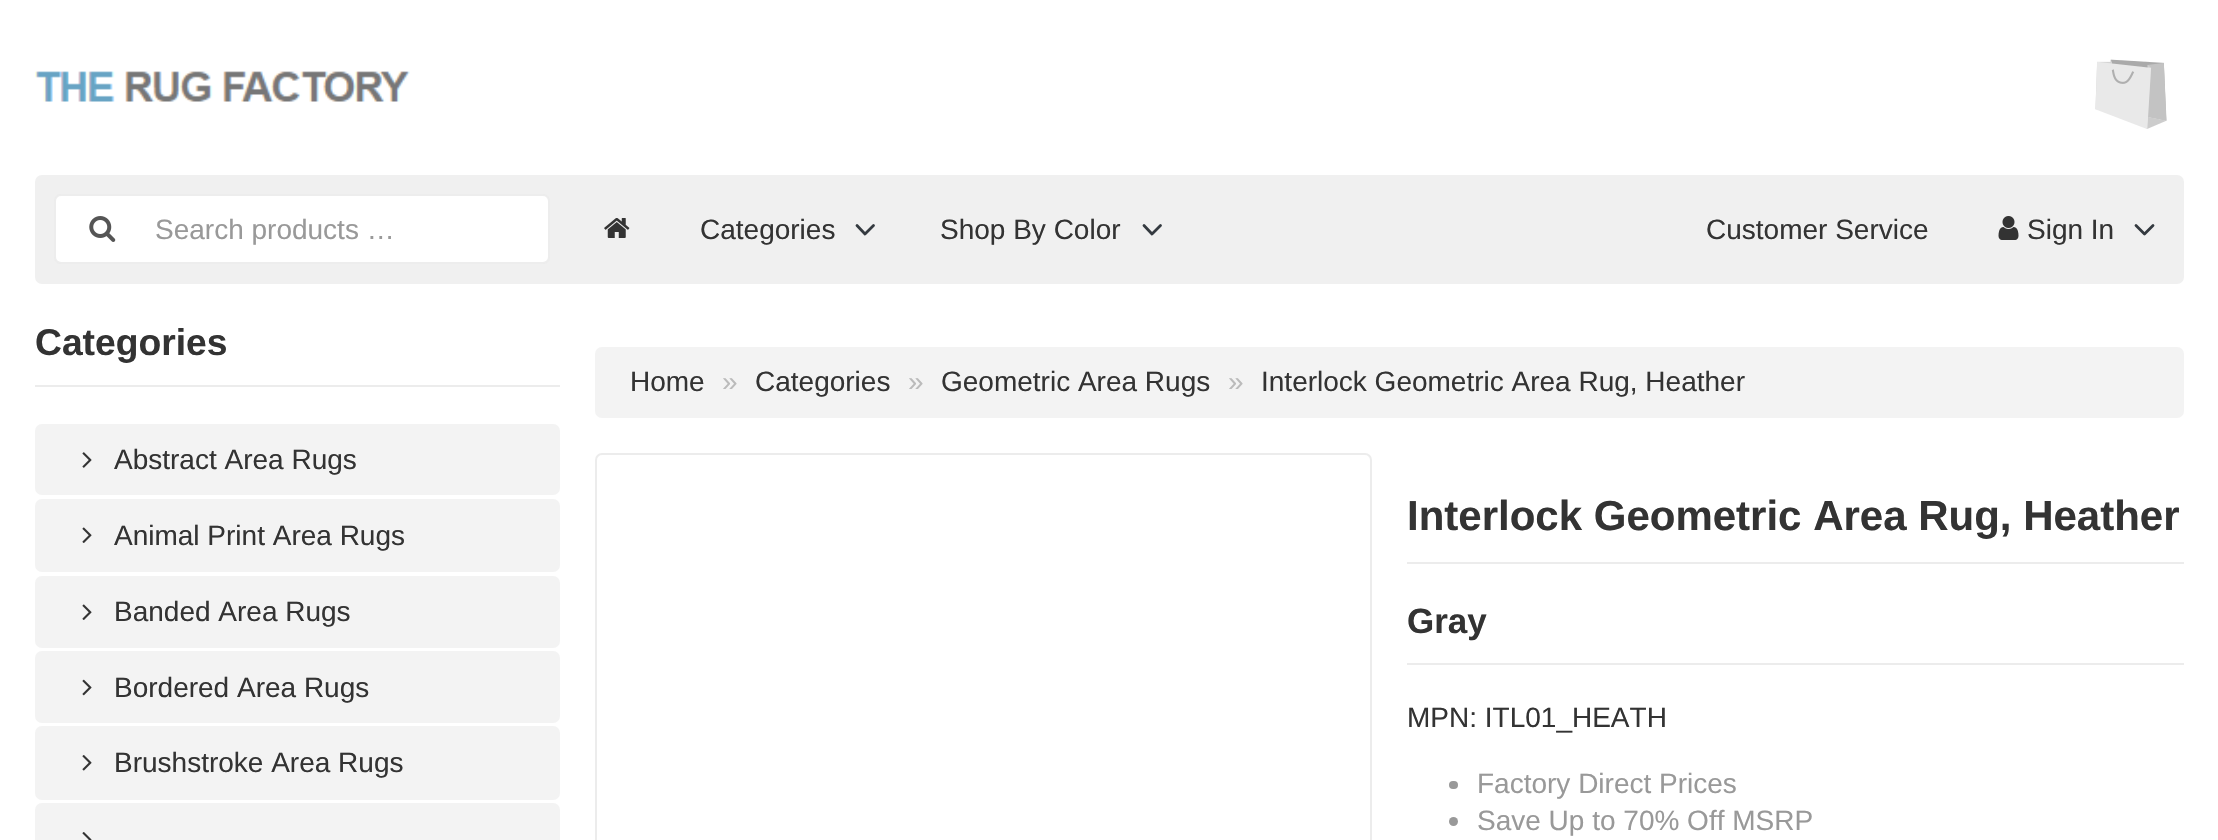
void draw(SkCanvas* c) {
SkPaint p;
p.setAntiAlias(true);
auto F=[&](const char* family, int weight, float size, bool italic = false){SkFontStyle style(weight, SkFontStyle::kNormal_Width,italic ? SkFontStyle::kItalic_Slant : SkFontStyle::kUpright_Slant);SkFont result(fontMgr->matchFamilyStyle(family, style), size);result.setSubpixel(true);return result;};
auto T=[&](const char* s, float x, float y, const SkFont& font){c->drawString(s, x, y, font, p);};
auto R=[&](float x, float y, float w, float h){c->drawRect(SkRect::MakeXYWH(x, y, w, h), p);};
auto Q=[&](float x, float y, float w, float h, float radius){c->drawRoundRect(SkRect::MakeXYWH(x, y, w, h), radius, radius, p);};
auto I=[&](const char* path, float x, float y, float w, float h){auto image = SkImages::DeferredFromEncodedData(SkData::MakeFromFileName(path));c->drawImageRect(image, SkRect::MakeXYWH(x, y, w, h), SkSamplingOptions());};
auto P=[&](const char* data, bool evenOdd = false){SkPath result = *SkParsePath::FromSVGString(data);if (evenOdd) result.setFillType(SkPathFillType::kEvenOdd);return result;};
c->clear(0xffffffff);
I("1.png",35,71,375,31);
I("2.png",2095,59,72,70);
p.setColor(0xfff0f0f0);
Q(35,175,2149,109,7);
p.setColor(0xffffffff);
Q(54,194,496,70,7);
p.setStroke(true);
p.setStrokeWidth(2);
p.setColor(0x12000000);
c->drawRoundRect(SkRect::MakeXYWH(55,195,494,68),6,6,p);
I("3.png",89,216,27,26);
auto f1 = F("Liberation Sans",400,28);
p.setStroke(false);
p.setColor(0xff999999);
T("Search products …",155,239,f1);
I("4.png",604,218,26,20);
p.setStroke(true);
p.setStrokeWidth(2.8);
p.setStrokeCap(SkPaint::kRound_Cap);
p.setStrokeJoin(SkPaint::kRound_Join);
p.setColor(0xff343a40);
c->drawPath(P("M857 225.5l8 8.5l8.5-8.5"),p);
p.setStroke(false);
p.setColor(0xff333333);
T("Categories",700,239,f1);
p.setStroke(true);
p.setColor(0xff343a40);
c->drawPath(P("M1144 225.5l8 8.5l8.5-8.5"),p);
p.setStroke(false);
p.setColor(0xff333333);
T("Shop By Color",940,239,f1);
T("Customer Service",1706,239,f1);
p.setStroke(true);
p.setColor(0xff343a40);
c->drawPath(P("M2136 225.5l8.5 8.5l8.5-8.5"),p);
I("5.png",1998,216,21,24);
p.setStroke(false);
p.setColor(0xff333333);
T("Sign In",2027,239,f1);
p.setColor(0xffececec);
R(35,385,525,2);
auto f2 = F("Liberation Sans",700,37.25);
p.setColor(0xff333333);
T("Categories",35,355,f2);
p.setColor(0xfff3f3f3);
Q(35,424,525,71,7);
I("6.png",82,452,10,16);
p.setColor(0xff333333);
T("Abstract Area Rugs",114,469,f1);
p.setColor(0xfff3f3f3);
Q(35,499,525,73,7);
I("7.png",82,527,10,16);
p.setColor(0xff333333);
T("Animal Print Area Rugs",114,545,f1);
p.setColor(0xfff3f3f3);
Q(35,576,525,72,7);
I("7.png",82,604,10,16);
p.setColor(0xff333333);
T("Banded Area Rugs",114,621,f1);
p.setColor(0xfff3f3f3);
Q(35,651,525,72,7);
I("8.png",82,679,10,17);
p.setColor(0xff333333);
T("Bordered Area Rugs",114,697,f1);
p.setColor(0xfff3f3f3);
Q(35,726,525,74,7);
I("9.png",82,755,10,16);
p.setColor(0xff333333);
T("Brushstroke Area Rugs",114,772,f1);
p.setColor(0xfff3f3f3);
Q(35,803,525,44,7);
I("10.png",82,832,10,8);
Q(595,347,1589,71,7);
p.setColor(0xff333333);
T("Home",630,391,f1);
p.setColor(0xffbbbbbb);
T("»",722,391,f1);
p.setColor(0xff333333);
T("Categories",755,391,f1);
p.setColor(0xffbbbbbb);
T("»",908,391,f1);
p.setColor(0xff333333);
T("Geometric Area Rugs",941,391,f1);
p.setColor(0xffbbbbbb);
T("»",1228,391,f1);
p.setColor(0xff333333);
T("Interlock Geometric Area Rug, Heather",1261,391,f1);
p.setStroke(true);
p.setStrokeWidth(2);
p.setStrokeCap(SkPaint::kButt_Cap);
p.setStrokeJoin(SkPaint::kMiter_Join);
p.setColor(0xffececec);
c->drawRoundRect(SkRect::MakeXYWH(596,454,775,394),6,6,p);
p.setStroke(false);
R(1407,562,777,2);
auto f3 = F("Liberation Sans",700,42);
p.setColor(0xff333333);
T("Interlock Geometric Area Rug, Heather",1407,530,f3);
p.setColor(0xffececec);
R(1407,663,777,2);
auto f4 = F("Liberation Sans",700,35);
p.setColor(0xff333333);
T("Gray",1407,633,f4);
T("MPN: ITL01_HEATH",1407,727,f1);
p.setColor(0xff999999);
Q(1449,781,9,8,4);
T("Factory Direct Prices",1477,793,f1);
c->drawCircle(1453.5,821.5,4.5,p);
T("Save Up to 70% Off MSRP",1477,830,f1);
}
